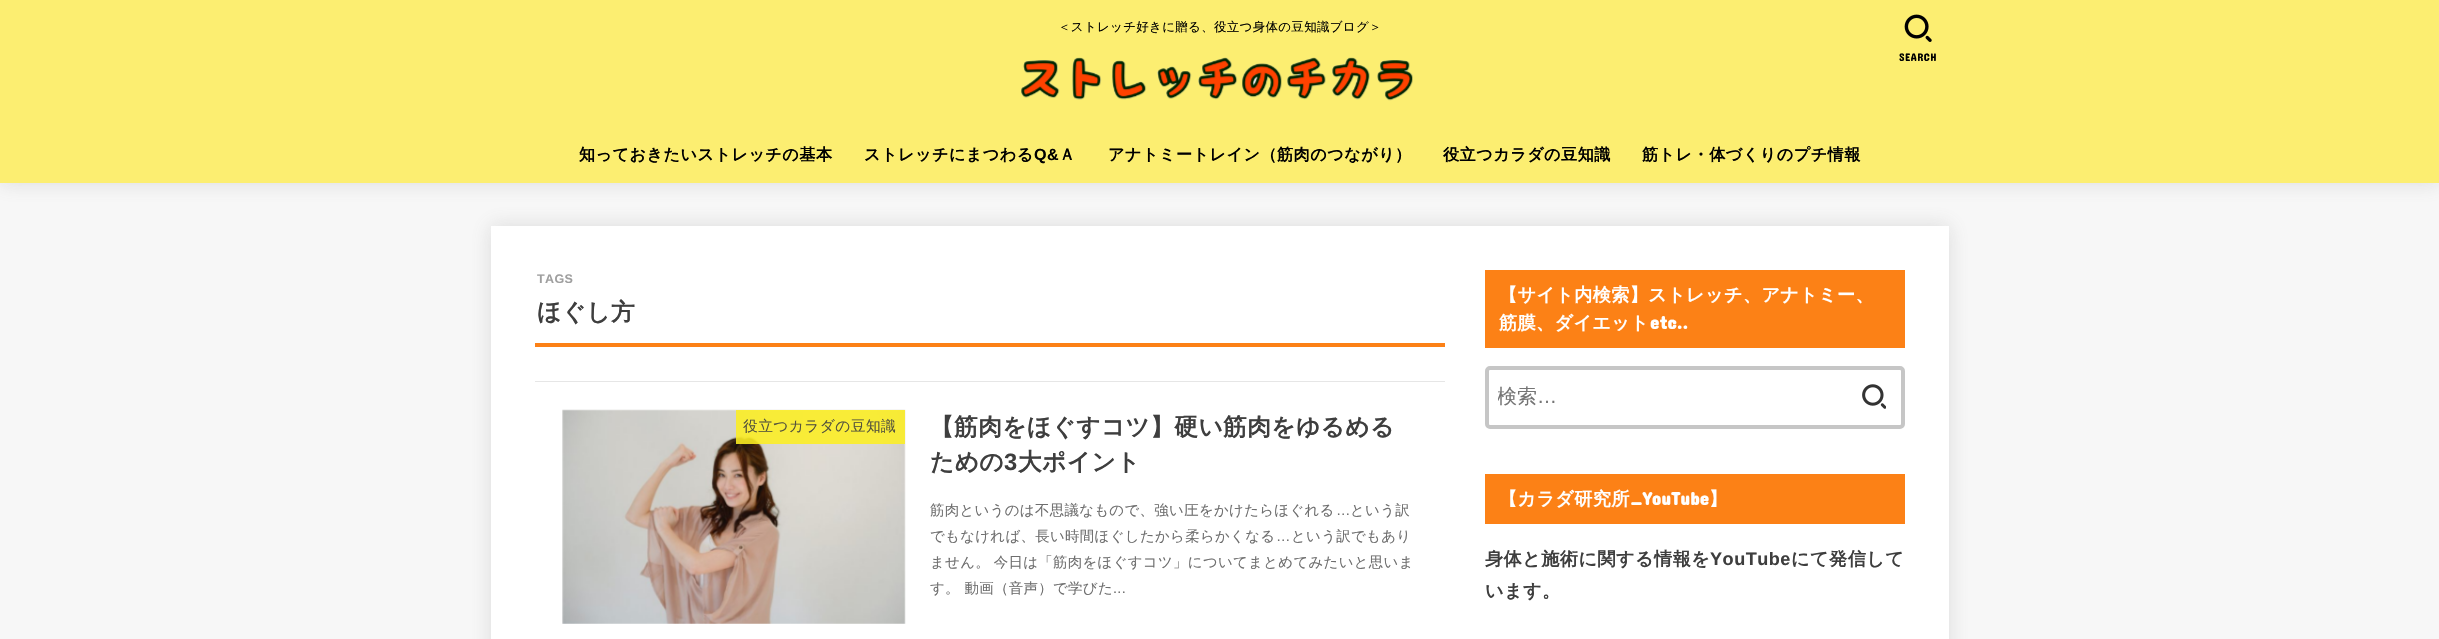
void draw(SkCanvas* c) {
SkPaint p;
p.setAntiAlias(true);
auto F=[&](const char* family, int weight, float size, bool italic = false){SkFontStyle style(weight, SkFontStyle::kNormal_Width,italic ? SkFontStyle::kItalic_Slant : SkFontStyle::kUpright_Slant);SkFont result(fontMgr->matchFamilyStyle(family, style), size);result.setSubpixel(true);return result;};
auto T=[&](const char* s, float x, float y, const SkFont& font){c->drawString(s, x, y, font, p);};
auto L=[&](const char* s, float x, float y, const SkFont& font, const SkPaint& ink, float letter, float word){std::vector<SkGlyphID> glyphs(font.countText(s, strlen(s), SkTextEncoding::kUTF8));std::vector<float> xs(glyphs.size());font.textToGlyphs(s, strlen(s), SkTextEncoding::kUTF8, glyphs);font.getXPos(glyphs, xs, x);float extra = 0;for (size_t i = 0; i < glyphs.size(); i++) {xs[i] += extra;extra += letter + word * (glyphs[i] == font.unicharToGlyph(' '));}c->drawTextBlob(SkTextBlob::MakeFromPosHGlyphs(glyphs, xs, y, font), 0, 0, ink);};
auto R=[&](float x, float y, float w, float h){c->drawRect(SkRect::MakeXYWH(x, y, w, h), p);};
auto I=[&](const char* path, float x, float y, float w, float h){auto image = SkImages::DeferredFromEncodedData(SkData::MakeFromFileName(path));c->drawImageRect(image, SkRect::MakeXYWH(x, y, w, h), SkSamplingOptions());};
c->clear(0xfff7f7f7);
p.setColor(0x33666666);
p.setMaskFilter(SkMaskFilter::MakeBlur(kNormal_SkBlurStyle, 9.5));
c->drawRect(SkRect::MakeXYWH(0,0,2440,183),p);
p.setMaskFilter(nullptr);
p.setColor(0xfffcee71);
R(0,0,2439,183);
auto f1 = F("WenQuanYi Zen Hei",500,12.5);
p.setColor(0xff000000);
L("＜ストレッチ好きに贈る、役立つ身体の豆知識ブログ＞",1058,31,f1,p,.3,0);
I("1.png",1021,57,392,44);
I("2.png",1904,14,28,28);
auto f2 = F("Concert One",400,11);
L("SEARCH",1899,61,f2,p,.5,0);
auto f3 = F("WenQuanYi Zen Hei",700,16.1);
L("知っておきたいストレッチの基本",579,160,f3,p,.5,0);
L("ストレッチにまつわる",864,160,f3,p,.5,0);
auto f4 = F("Liberation Sans",700,16.1);
L("Q&",1034,160,f4,p,.5,0);
L("Ａ",1059,160,f3,p,.5,0);
L("アナトミートレイン（筋肉のつながり）",1108,160,f3,p,.5,0);
L("役立つカラダの豆知識",1443,160,f3,p,.5,0);
L("筋トレ・体づくりのプチ情報",1642,160,f3,p,.5,0);
p.setColor(0x33666666);
p.setMaskFilter(SkMaskFilter::MakeBlur(kNormal_SkBlurStyle, 9.5));
c->drawRect(SkRect::MakeXYWH(491,226,1458,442),p);
p.setMaskFilter(nullptr);
p.setColor(0xffffffff);
R(491,226,1458,413);
p.setColor(0xfffc8116);
R(535,343,910,4);
auto f5 = F("Liberation Sans",700,12.5);
p.setColor(0xff9f9f9f);
L("TAGS",537,283,f5,p,.4,0);
auto f6 = F("WenQuanYi Zen Hei",700,23.7);
p.setColor(0xff3e3e3e);
L("ほぐし方",537,320,f6,p,.4,0);
p.setColor(0xffe6e6e6);
R(535,381,910,1);
I("3.png",562,409,344,215);
p.setColor(0xe0fcee21);
R(736,410,169,34);
auto f7 = F("WenQuanYi Zen Hei",500,14.75);
p.setColor(0xff54533d);
L("役立つカラダの豆知識",743,431,f7,p,.4,0);
p.setColor(0xff3e3e3e);
L("【筋肉をほぐすコツ】硬い筋肉をゆるめる",930,435,f6,p,.4,0);
L("ための",930,470,f6,p,.4,0);
auto f8 = F("Liberation Sans",700,23.7);
L("3",1004,470,f8,p,.4,0);
L("大ポイント",1018,470,f6,p,.4,0);
auto f9 = F("WenQuanYi Zen Hei",500,14.4);
p.setColor(0xff6e6e6e);
L("筋肉というのは不思議なもので、強い圧をかけたらほぐれる",930,515,f9,p,.35,0);
auto f10 = F("Liberation Sans",400,14.4);
L("…",1336,515,f10,p,.35,0);
L("という訳",1350,515,f9,p,.35,0);
L("でもなければ、長い時間ほぐしたから柔らかくなる",930,541,f9,p,.35,0);
L("…",1276,541,f10,p,.35,0);
L("という訳でもあり",1291,541,f9,p,.35,0);
L("ません。 今日は「筋肉をほぐすコツ」についてまとめてみたいと思いま",930,567,f9,p,.35,-1);
L("す。 動画（音声）で学びた",930,593,f9,p,.35,0);
L("...",1113,593,f10,p,.35,0);
p.setColor(0xfffc8116);
R(1485,270,420,78);
auto f11 = F("WenQuanYi Zen Hei",700,18.1);
p.setColor(0xffffffff);
L("【サイト内検索】ストレッチ、アナトミー、",1499,301,f11,p,.4,0);
L("筋膜、ダイエット",1499,329,f11,p,.4,0);
auto f12 = F("Concert One",700,18.1);
L("etc..",1650,329,f12,p,.4,0);
p.setStroke(true);
p.setStrokeWidth(4);
p.setColor(0xffc6c6c6);
c->drawRoundRect(SkRect::MakeXYWH(1487,368,416,59),3,3,p);
c->save();
c->clipRect(SkRect::MakeXYWH(1498,385,348,26));
auto f13 = F("WenQuanYi Zen Hei",500,20);
p.setStroke(false);
p.setColor(0xff757575);
T("検索",1497,403,f13);
c->restore();
auto f14 = F("Liberation Sans",400,20);
T("…",1537,403,f14);
I("4.png",1862,384,24,25);
p.setColor(0xfffc8116);
R(1485,474,420,50);
p.setColor(0xffffffff);
L("【カラダ研究所",1499,505,f11,p,.4,0);
L("_YouTube",1630,505,f12,p,.4,0);
L("】",1709,505,f11,p,.4,0);
p.setColor(0xff3e3e3e);
L("身体と施術に関する情報を",1485,565,f11,p,.5,0);
auto f15 = F("Liberation Sans",700,18.1);
L("YouTube",1710,565,f15,p,.5,0);
L("にて発信して",1791,565,f11,p,.5,0);
L("います。",1485,597,f11,p,.5,0);
}
